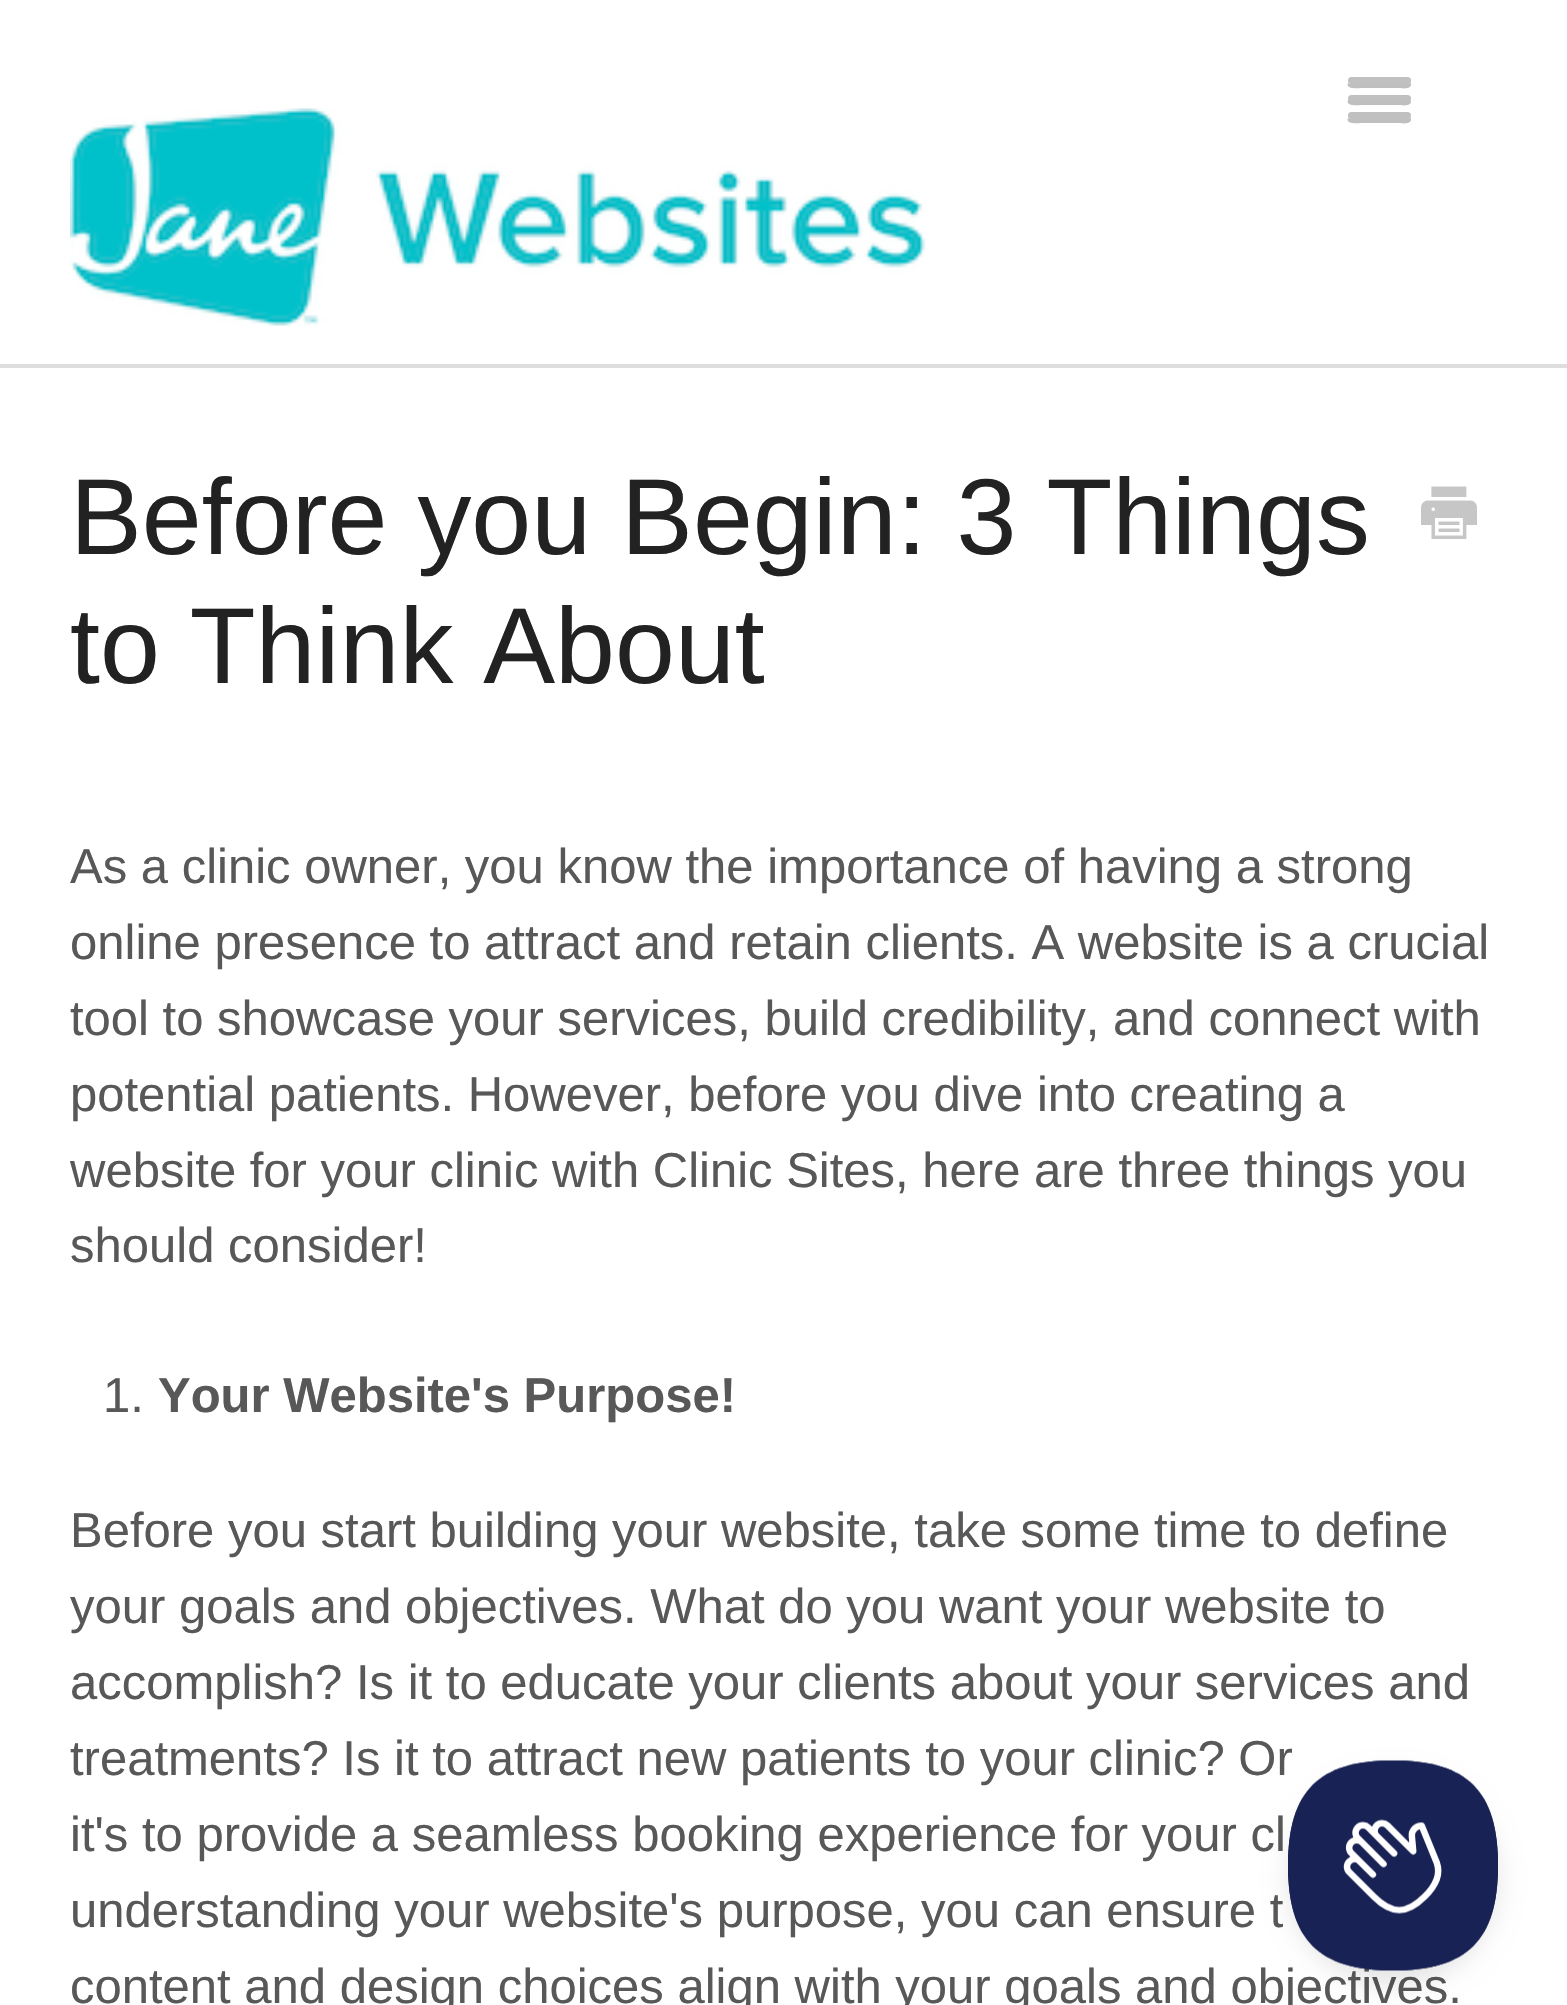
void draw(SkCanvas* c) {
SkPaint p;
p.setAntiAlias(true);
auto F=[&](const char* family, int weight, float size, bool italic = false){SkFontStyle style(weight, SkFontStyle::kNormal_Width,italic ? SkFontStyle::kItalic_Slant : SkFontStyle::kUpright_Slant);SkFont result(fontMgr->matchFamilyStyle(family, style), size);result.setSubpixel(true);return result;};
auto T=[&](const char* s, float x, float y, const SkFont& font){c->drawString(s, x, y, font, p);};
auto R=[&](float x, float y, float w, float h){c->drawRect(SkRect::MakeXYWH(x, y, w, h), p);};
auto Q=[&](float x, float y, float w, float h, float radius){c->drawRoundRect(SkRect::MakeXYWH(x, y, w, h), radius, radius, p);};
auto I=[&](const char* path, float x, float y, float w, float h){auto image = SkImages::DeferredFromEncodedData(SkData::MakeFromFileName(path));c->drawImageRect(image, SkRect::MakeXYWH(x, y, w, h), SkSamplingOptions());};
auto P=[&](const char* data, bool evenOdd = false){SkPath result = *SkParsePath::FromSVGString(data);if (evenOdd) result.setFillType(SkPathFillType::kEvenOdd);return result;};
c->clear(0xffffffff);
p.setColor(0xffbfbfbf);
c->drawPath(P("M1348 83c-3 7 12 5 13 5h37c2 0 12 2 13-3c0-1 0-2-1-3c0 1-1 2-3 2h-56z"),p);
p.setColor(0xffc0c0c0);
Q(1348,77,63,7,3.5);
p.setColor(0xffbfbfbf);
c->drawPath(P("M1348 100c-3 7 12 5 13 5h37c2 0 12 2 13-3l-1-3c0 1-1 2-2 2h-57z"),p);
p.setColor(0xffc0c0c0);
Q(1348,95,63,7,3.5);
p.setColor(0xffbfbfbf);
c->drawPath(P("M1348 118c-3 7 12 5 13 5h37c2 0 12 2 13-3c0-1 0-2-1-3c0 1-1 2-3 2h-56z"),p);
p.setColor(0xffc0c0c0);
Q(1348,112,63,7,3.5);
I("1.png",70,108,856,218);
p.setColor(0xffdedede);
R(0,364,1567,4);
auto f1 = F("Liberation Sans",400,107.75);
p.setColor(0xff222222);
T("Before you Begin: 3 Things",70,554,f1);
T("to Think About",70,683,f1);
I("2.png",1421,486,56,53);
auto f2 = F("Liberation Sans",400,49);
p.setColor(0xff585858);
T("As a clinic owner, you know the importance of having a strong",70,883,f2);
T("online presence to attract and retain clients. A website is a crucial",70,959,f2);
T("tool to showcase your services, build credibility, and connect with",70,1035,f2);
T("potential patients. However, before you dive into creating a",70,1111,f2);
T("website for your clinic with Clinic Sites, here are three things you",70,1187,f2);
T("should consider!",70,1262,f2);
T("1.",103,1412,f2);
auto f3 = F("Liberation Sans",700,49);
T("Your Website's Purpose!",158,1412,f3);
T("Before you start building your website, take some time to define",70,1547,f2);
T("your goals and objectives. What do you want your website to",70,1623,f2);
T("accomplish? Is it to educate your clients about your services and",70,1699,f2);
T("treatments? Is it to attract new patients to your clinic? Or",70,1775,f2);
T("it's to provide a seamless booking experience for your cl",70,1851,f2);
T("understanding your website's purpose, you can ensure t",70,1927,f2);
T("content and design choices align with your goals and objectives.",70,2003,f2);
p.setColor(0x1a000000);
p.setMaskFilter(SkMaskFilter::MakeBlur(kNormal_SkBlurStyle, 12));
c->drawRoundRect(SkRect::MakeXYWH(1288,1775,210,210),105,105,p);
p.setMaskFilter(nullptr);
I("3.png",1288,1760,210,211);
}
